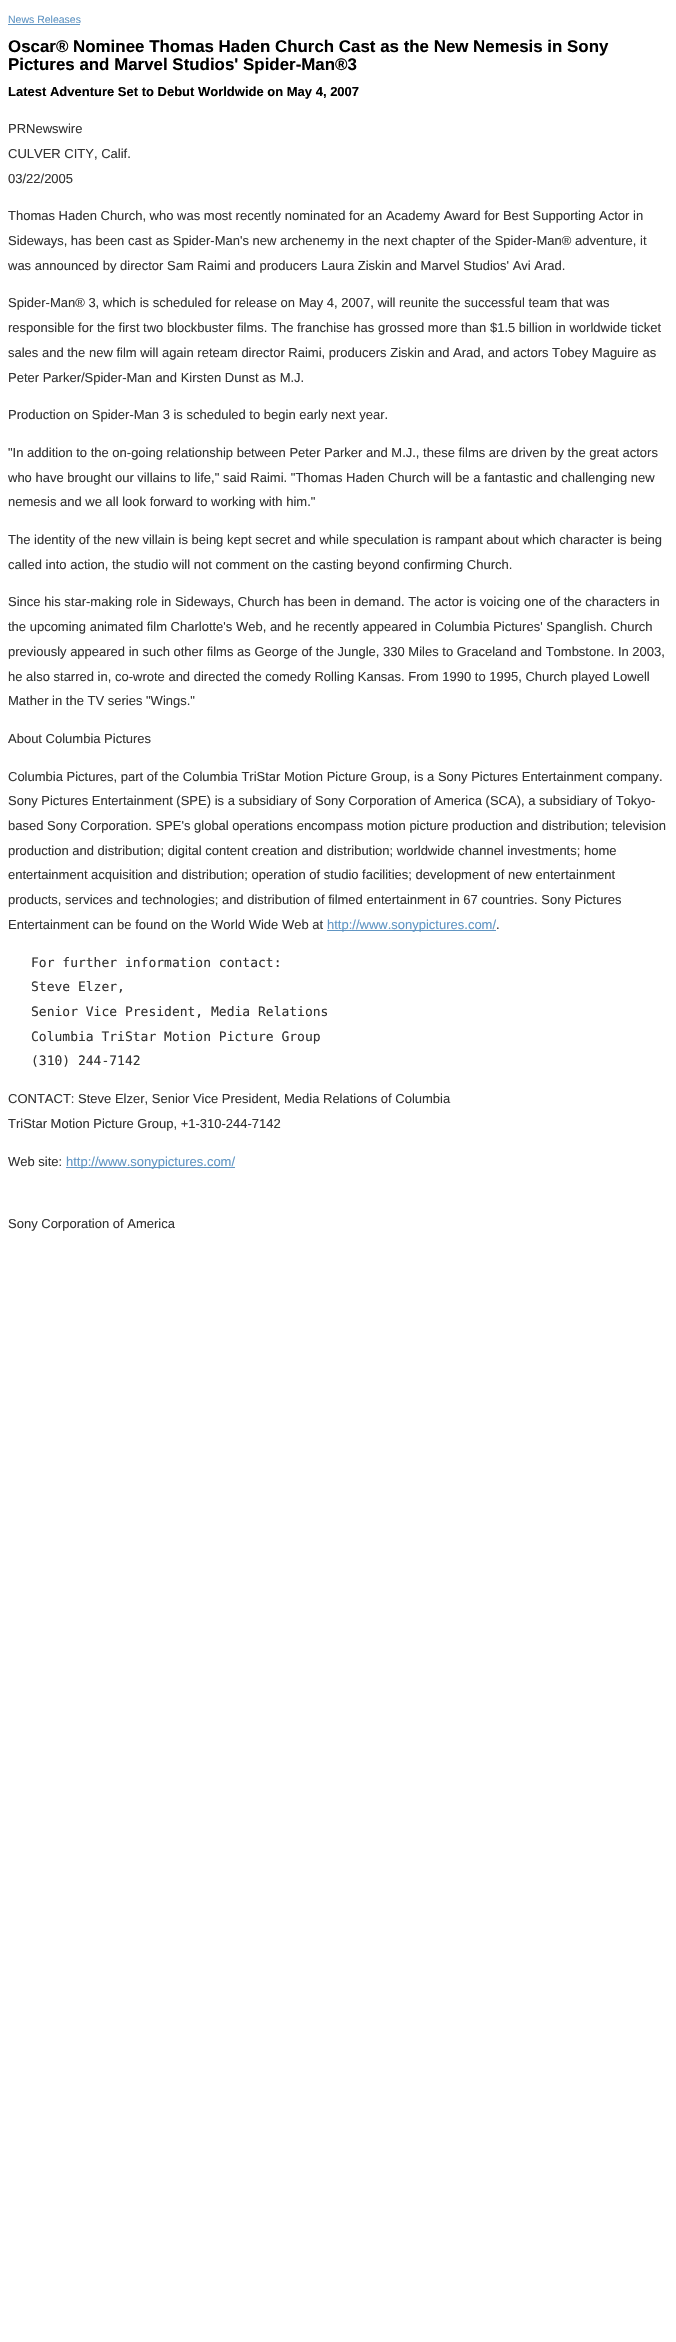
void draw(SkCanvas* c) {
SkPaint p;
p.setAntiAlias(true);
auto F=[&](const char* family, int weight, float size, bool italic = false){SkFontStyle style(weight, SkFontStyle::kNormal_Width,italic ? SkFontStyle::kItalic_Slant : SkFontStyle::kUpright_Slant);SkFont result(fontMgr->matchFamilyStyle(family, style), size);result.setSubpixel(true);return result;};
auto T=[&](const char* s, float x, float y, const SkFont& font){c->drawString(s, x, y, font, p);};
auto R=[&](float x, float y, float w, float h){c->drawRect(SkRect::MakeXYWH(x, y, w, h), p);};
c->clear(0xffffffff);
auto f1 = F("Liberation Sans",400,10.5);
p.setColor(0xff6095c3);
T("News Releases",8,23,f1);
R(8,24,72,1);
auto f2 = F("Liberation Sans",700,16.9);
p.setColor(0xff000000);
T("Oscar® Nominee Thomas Haden Church Cast as the New Nemesis in Sony",8,52,f2);
T("Pictures and Marvel Studios' Spider-Man®3",8,70,f2);
auto f3 = F("Liberation Sans",700,13);
T("Latest Adventure Set to Debut Worldwide on May 4, 2007",8,96,f3);
auto f4 = F("Liberation Sans",400,13);
p.setColor(0xff333333);
T("PRNewswire",8,133,f4);
T("CULVER CITY, Calif.",8,158,f4);
T("03/22/2005",8,183,f4);
T("Thomas Haden Church, who was most recently nominated for an Academy Award for Best Supporting Actor in",8,220,f4);
T("Sideways, has been cast as Spider-Man's new archenemy in the next chapter of the Spider-Man® adventure, it",8,245,f4);
T("was announced by director Sam Raimi and producers Laura Ziskin and Marvel Studios' Avi Arad.",8,270,f4);
T("Spider-Man® 3, which is scheduled for release on May 4, 2007, will reunite the successful team that was",8,307,f4);
T("responsible for the first two blockbuster films. The franchise has grossed more than $1.5 billion in worldwide ticket",8,332,f4);
T("sales and the new film will again reteam director Raimi, producers Ziskin and Arad, and actors Tobey Maguire as",8,357,f4);
T("Peter Parker/Spider-Man and Kirsten Dunst as M.J.",8,382,f4);
T("Production on Spider-Man 3 is scheduled to begin early next year.",8,419,f4);
T("\"In addition to the on-going relationship between Peter Parker and M.J., these films are driven by the great actors",8,457,f4);
T("who have brought our villains to life,\" said Raimi. \"Thomas Haden Church will be a fantastic and challenging new",8,482,f4);
T("nemesis and we all look forward to working with him.\"",8,506,f4);
T("The identity of the new villain is being kept secret and while speculation is rampant about which character is being",8,544,f4);
T("called into action, the studio will not comment on the casting beyond confirming Church.",8,569,f4);
T("Since his star-making role in Sideways, Church has been in demand. The actor is voicing one of the characters in",8,606,f4);
T("the upcoming animated film Charlotte's Web, and he recently appeared in Columbia Pictures' Spanglish. Church",8,631,f4);
T("previously appeared in such other films as George of the Jungle, 330 Miles to Graceland and Tombstone. In 2003,",8,656,f4);
T("he also starred in, co-wrote and directed the comedy Rolling Kansas. From 1990 to 1995, Church played Lowell",8,681,f4);
T("Mather in the TV series \"Wings.\"",8,705,f4);
T("About Columbia Pictures",8,743,f4);
T("Columbia Pictures, part of the Columbia TriStar Motion Picture Group, is a Sony Pictures Entertainment company.",8,781,f4);
T("Sony Pictures Entertainment (SPE) is a subsidiary of Sony Corporation of America (SCA), a subsidiary of Tokyo-",8,805,f4);
T("based Sony Corporation. SPE's global operations encompass motion picture production and distribution; television",8,830,f4);
T("production and distribution; digital content creation and distribution; worldwide channel investments; home",8,855,f4);
T("entertainment acquisition and distribution; operation of studio facilities; development of new entertainment",8,879,f4);
T("products, services and technologies; and distribution of filmed entertainment in 67 countries. Sony Pictures",8,904,f4);
T("Entertainment can be found on the World Wide Web at",8,929,f4);
p.setColor(0xff6095c3);
R(327,930,169,1);
T("http://www.sonypictures.com/",327,929,f4);
p.setColor(0xff333333);
T(".",496,929,f4);
auto f5 = F("DejaVu Sans Mono",400,13);
T("For further information contact:",31,967,f5);
T("Steve Elzer,",31,991,f5);
T("Senior Vice President, Media Relations",31,1016,f5);
T("Columbia TriStar Motion Picture Group",31,1041,f5);
T("(310) 244-7142",31,1065,f5);
T("CONTACT: Steve Elzer, Senior Vice President, Media Relations of Columbia",8,1103,f4);
T("TriStar Motion Picture Group, +1-310-244-7142",8,1128,f4);
T("Web site:",8,1166,f4);
p.setColor(0xff6095c3);
R(66,1167,169,1);
T("http://www.sonypictures.com/",66,1166,f4);
p.setColor(0xff333333);
T("Sony Corporation of America",8,1228,f4);
}
